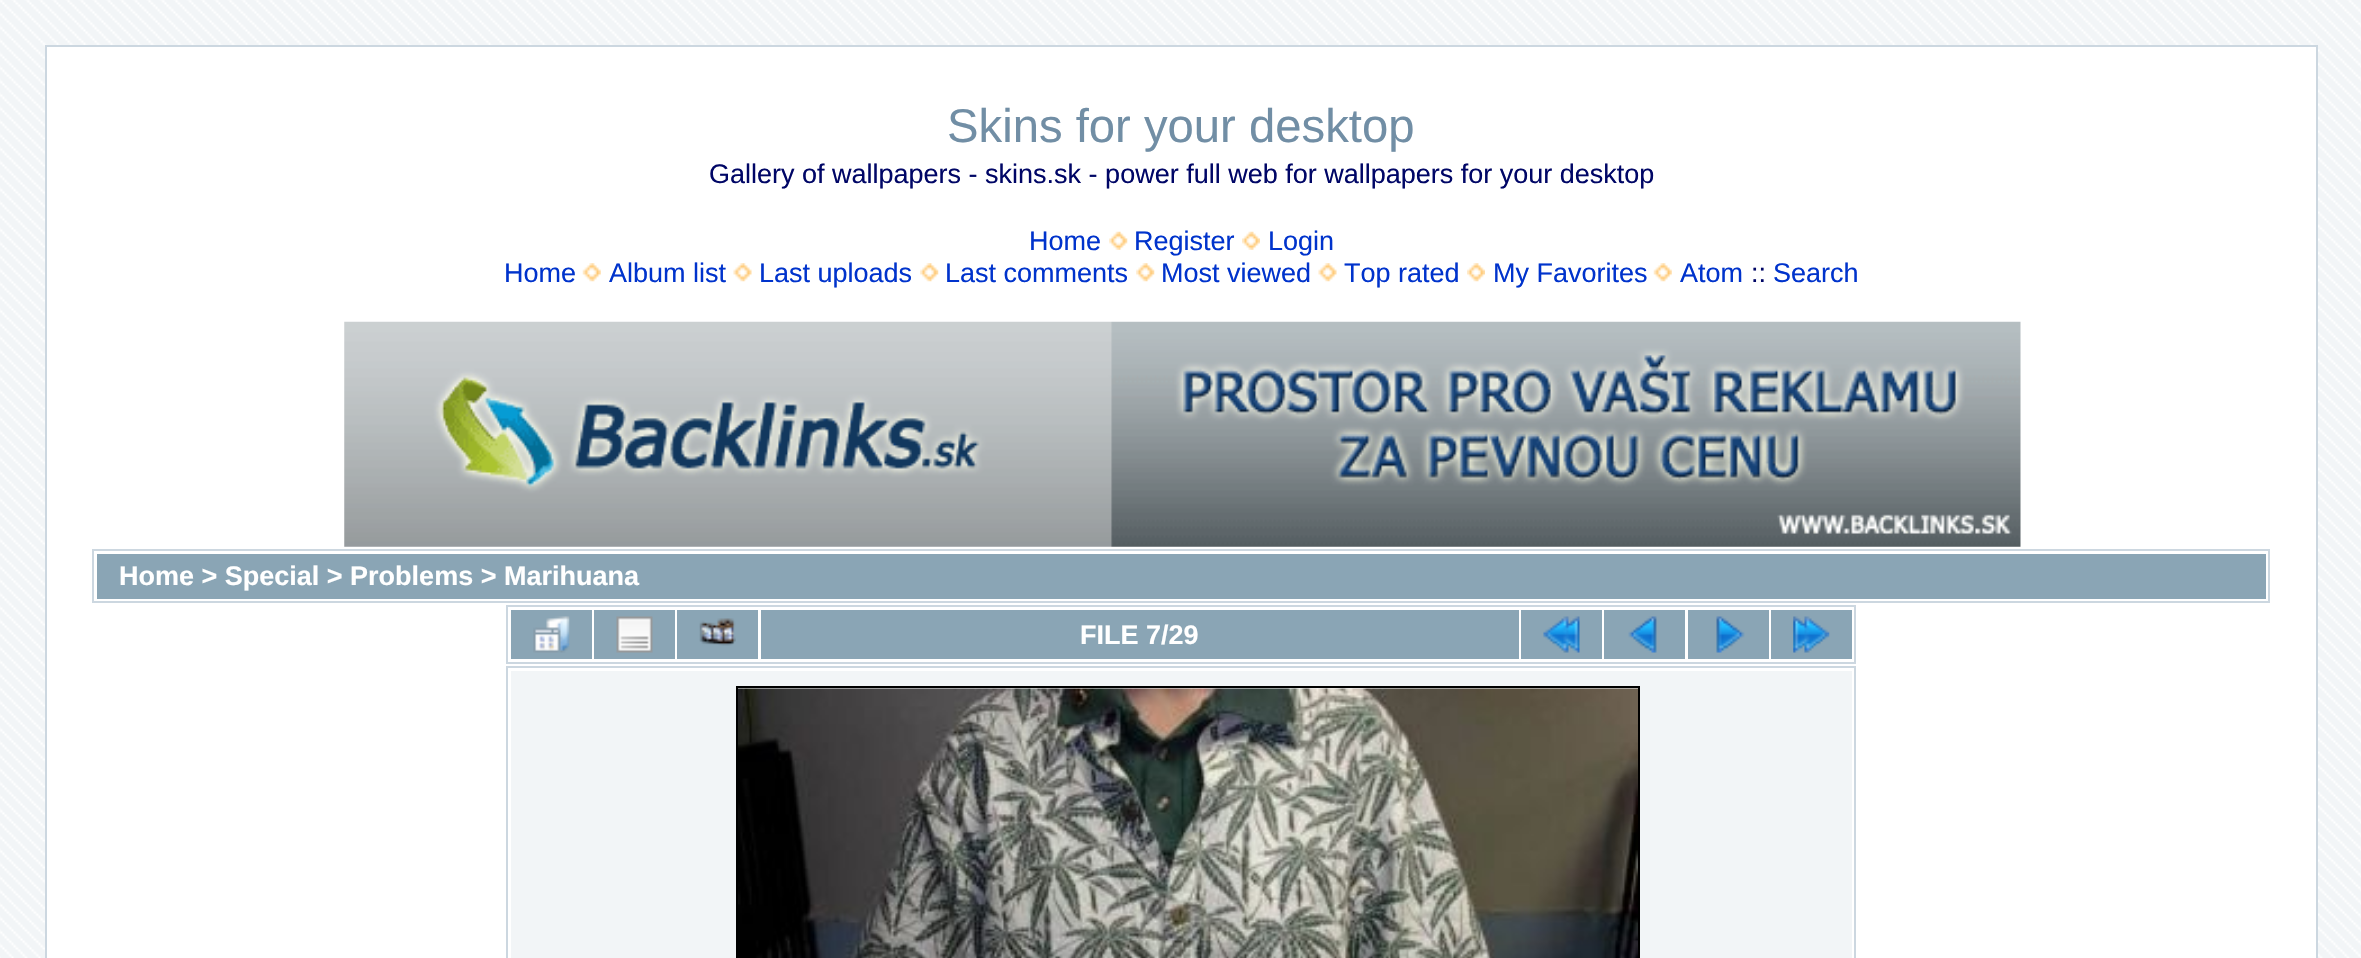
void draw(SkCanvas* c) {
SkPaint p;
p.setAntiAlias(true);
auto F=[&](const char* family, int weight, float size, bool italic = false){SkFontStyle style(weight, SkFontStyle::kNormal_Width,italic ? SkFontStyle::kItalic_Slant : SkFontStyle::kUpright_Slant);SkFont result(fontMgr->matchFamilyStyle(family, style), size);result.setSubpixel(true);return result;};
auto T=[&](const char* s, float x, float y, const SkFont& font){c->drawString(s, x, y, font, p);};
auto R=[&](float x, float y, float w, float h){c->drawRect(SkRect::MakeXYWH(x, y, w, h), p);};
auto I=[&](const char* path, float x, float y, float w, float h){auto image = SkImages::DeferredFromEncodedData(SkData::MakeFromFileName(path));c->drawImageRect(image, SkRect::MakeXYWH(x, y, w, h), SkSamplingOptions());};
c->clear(0xfff2f5f7);
I("1.png",0,0,2361,958);
p.setColor(0xffffffff);
c->drawRect(SkRect::MakeXYWH(46,46,2271,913),p);
p.setStroke(true);
p.setStrokeWidth(2);
p.setColor(0xffccd7e0);
c->drawRect(SkRect::MakeXYWH(46,46,2271,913),p);
auto f1 = F("Liberation Sans",400,47.25);
p.setStroke(false);
p.setColor(0xff718ea5);
T("Skins for your desktop",947,142,f1);
auto f2 = F("Liberation Sans",400,27);
p.setColor(0xff000666);
T("Gallery of wallpapers - skins.sk - power full web for wallpapers for your desktop",709,183,f2);
p.setColor(0xff0033cc);
T("Home",1029,250,f2);
I("2.png",1109,231,19,19);
T("Register",1134,250,f2);
I("3.png",1242,231,18,19);
T("Login",1268,250,f2);
T("Home",504,282,f2);
I("4.png",582,263,19,19);
T("Album list",609,282,f2);
I("5.png",733,263,19,19);
T("Last uploads",759,282,f2);
I("6.png",920,263,19,19);
T("Last comments",945,282,f2);
I("7.png",1136,263,19,19);
T("Most viewed",1161,282,f2);
I("8.png",1318,263,19,19);
T("Top rated",1344,282,f2);
I("9.png",1467,263,18,19);
T("My Favorites",1493,282,f2);
I("10.png",1653,263,19,19);
T("Atom",1680,282,f2);
p.setColor(0xff000666);
T("::",1751,282,f2);
p.setColor(0xff0033cc);
T("Search",1773,282,f2);
I("11.png",344,321,1677,226);
p.setStroke(true);
p.setColor(0xffccd7e0);
c->drawRect(SkRect::MakeXYWH(93,550,2176,52),p);
p.setStroke(false);
p.setColor(0xff8aa5b5);
R(97,554,2169,45);
auto f3 = F("Liberation Sans",700,27);
p.setColor(0xffffffff);
T("Home > Special > Problems > Marihuana",119,585,f3);
p.setStroke(true);
p.setColor(0xffccd7e0);
c->drawRect(SkRect::MakeXYWH(507,606,1348,57),p);
p.setStroke(false);
p.setColor(0xff8aa5b5);
R(511,610,81,49);
I("12.png",533,616,37,37);
R(594,610,81,49);
I("13.png",616,616,37,37);
R(677,610,81,49);
I("14.png",699,618,37,28);
R(761,610,758,49);
p.setColor(0xffffffff);
T("FILE 7/29",1080,644,f3);
p.setColor(0xff8aa5b5);
R(1521,610,81,49);
I("15.png",1543,616,37,37);
R(1604,610,81,49);
I("16.png",1628,616,29,37);
R(1688,610,81,49);
I("17.png",1716,616,29,37);
R(1771,610,81,49);
I("18.png",1793,616,37,37);
p.setStroke(true);
p.setColor(0xffccd7e0);
c->drawRect(SkRect::MakeXYWH(507,667,1348,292),p);
p.setStroke(false);
p.setColor(0xfff2f5f7);
R(511,671,1341,287);
p.setStroke(true);
p.setColor(0xff000000);
c->drawRect(SkRect::MakeXYWH(737,687,902,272),p);
I("19.png",738,688,900,270);
}
